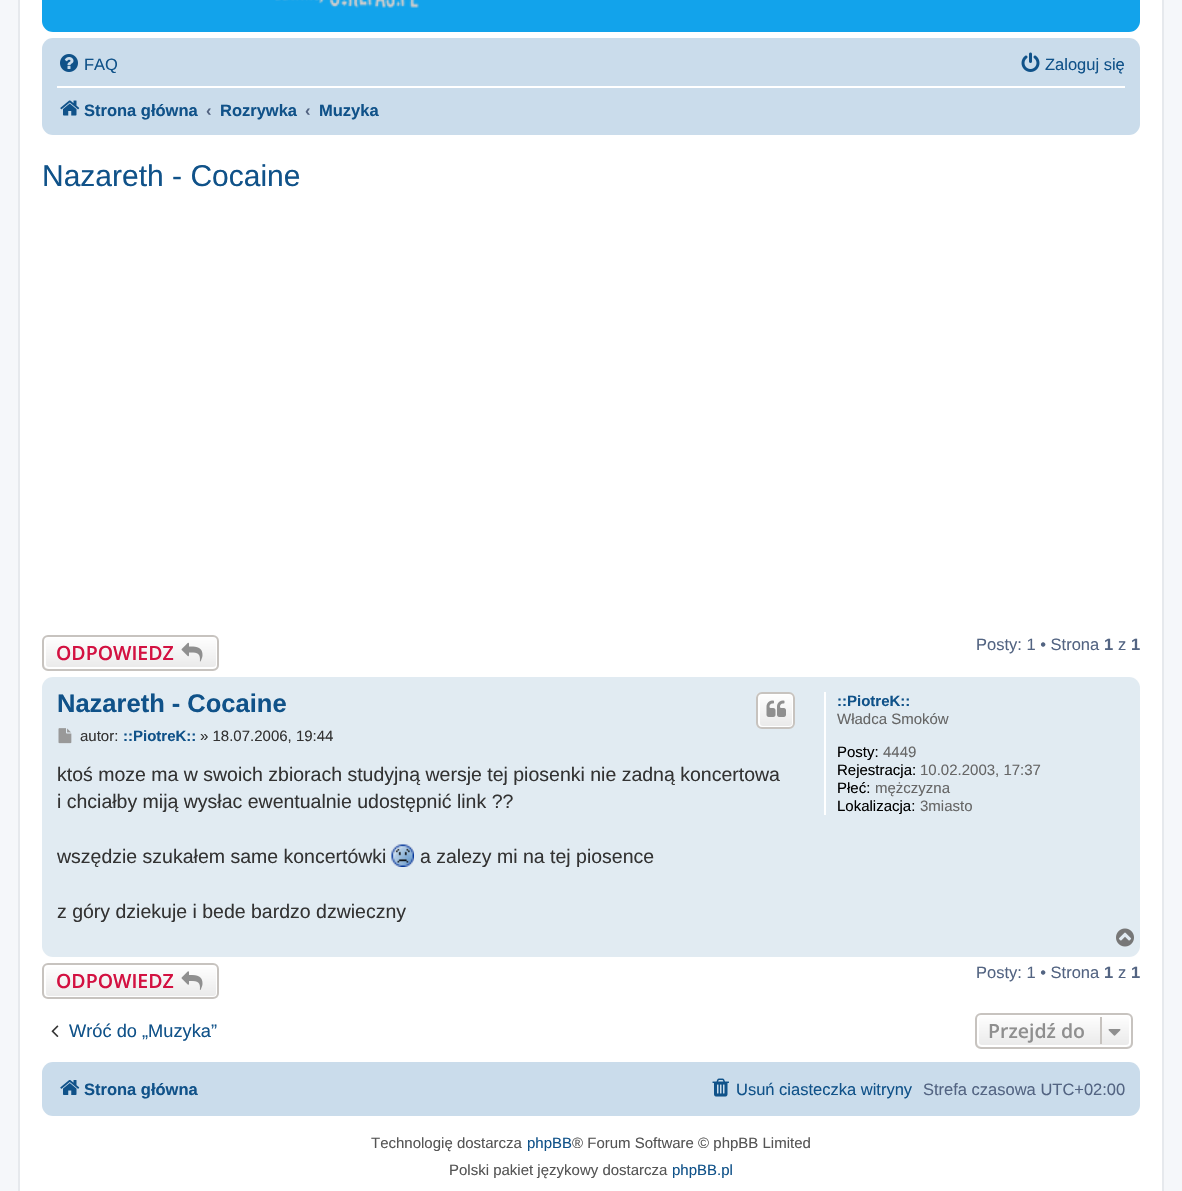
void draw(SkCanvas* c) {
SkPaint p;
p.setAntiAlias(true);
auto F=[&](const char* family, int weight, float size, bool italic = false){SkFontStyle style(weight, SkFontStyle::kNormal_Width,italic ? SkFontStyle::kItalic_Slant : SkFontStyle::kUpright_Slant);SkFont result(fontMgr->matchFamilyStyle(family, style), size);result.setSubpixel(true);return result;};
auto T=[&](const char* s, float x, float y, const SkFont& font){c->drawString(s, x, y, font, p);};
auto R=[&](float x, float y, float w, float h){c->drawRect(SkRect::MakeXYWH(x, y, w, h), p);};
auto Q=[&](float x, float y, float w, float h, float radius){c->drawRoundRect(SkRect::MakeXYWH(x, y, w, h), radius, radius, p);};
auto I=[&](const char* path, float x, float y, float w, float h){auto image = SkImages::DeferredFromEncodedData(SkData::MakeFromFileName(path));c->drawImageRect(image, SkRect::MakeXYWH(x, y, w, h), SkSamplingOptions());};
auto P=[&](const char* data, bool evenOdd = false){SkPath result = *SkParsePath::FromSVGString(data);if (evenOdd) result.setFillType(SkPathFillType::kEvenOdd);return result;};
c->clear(0xfff5f7fa);
p.setColor(0xffffffff);
c->drawRect(SkRect::MakeXYWH(19,-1,1144,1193),p);
p.setStroke(true);
p.setStrokeWidth(2);
p.setColor(0xffe6e9ed);
c->drawRect(SkRect::MakeXYWH(19,-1,1144,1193),p);
p.setStroke(false);
{
const SkColor colors[] = {0xff6aceff,0xff0076b1,0xff12a3eb,0xff12a3eb};
const float stops[] = {0,.02,.79,1};
const SkPoint ends[] = {{591,-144}, {591,32}};
p.setShader(SkGradientShader::MakeLinear(ends, colors, stops, 4, SkTileMode::kClamp));
p.setAlpha(255);
}
Q(42,-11,1098,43,11);
I("1.png",275,0,144,8);
p.setShader(nullptr);
p.setColor(0xffcadceb);
Q(42,38,1098,97,11);
I("2.png",60,54,18,18);
auto f1 = F("Liberation Sans",400,16.5);
p.setColor(0xff105289);
T("FAQ",84,70,f1);
I("3.png",1021,52,19,20);
T("Zaloguj się",1045,70,f1);
p.setColor(0xffffffff);
R(57,86,1068,2);
I("4.png",60,100,20,16);
auto f2 = F("Liberation Sans",700,16.5);
p.setColor(0xff105289);
T("Strona główna",84,116,f2);
p.setColor(0xff536482);
T("‹",206,116,f2);
p.setColor(0xff105289);
T("Rozrywka",220,116,f2);
p.setColor(0xff536482);
T("‹",305,116,f2);
p.setColor(0xff105289);
T("Muzyka",319,116,f2);
auto f3 = F("Liberation Sans",400,30);
T("Nazareth - Cocaine",42,186,f3);
c->save();
c->clipPath(P("M48 635h165c3.5 0 6 2.5 6 6v24c0 3.5-2.5 6-6 6h-165c-3.5 0-6-2.5-6-6v-24c0-3.5 2.5-6 6-6z"),true);
{
const SkColor colors[] = {0xffffffff,0xffe9e9e9};
const float stops[] = {0,1};
const SkPoint ends[] = {{131,636}, {131,669}};
p.setShader(SkGradientShader::MakeLinear(ends, colors, stops, 2, SkTileMode::kClamp));
p.setAlpha(255);
}
R(42,636,177,33);
c->restore();
p.setStroke(true);
p.setShader(nullptr);
p.setColor(0xffffffff);
c->drawRoundRect(SkRect::MakeXYWH(45,637,172,31),4,4,p);
p.setColor(0xffc7c3bf);
c->drawRoundRect(SkRect::MakeXYWH(43,636,175,34),5,5,p);
auto f4 = F("Open Sans",600,19.5);
p.setStroke(false);
p.setColor(0xffd31141);
T("ODPOWIEDZ",56,660,f4);
I("5.png",181,642,22,20);
p.setColor(0xff536482);
T("Posty: 1 • Strona",976,650,f1);
T("1",1104,650,f2);
T("z",1118,650,f1);
T("1",1131,650,f2);
p.setColor(0xffe1ebf2);
Q(42,677,1098,280,11);
auto f5 = F("Liberation Sans",700,25.5);
p.setColor(0xff105289);
T("Nazareth - Cocaine",57,712,f5);
c->save();
c->clipPath(P("M762 692h27c3.5 0 6 2.5 6 6v25c0 3.5-2.5 6-6 6h-27c-3.5 0-6-2.5-6-6v-25c0-3.5 2.5-6 6-6z"),true);
{
const SkColor colors[] = {0xffffffff,0xffe9e9e9};
const float stops[] = {0,1};
const SkPoint ends[] = {{776,693}, {776,728}};
p.setShader(SkGradientShader::MakeLinear(ends, colors, stops, 2, SkTileMode::kClamp));
p.setAlpha(255);
}
R(756,693,39,35);
c->restore();
p.setStroke(true);
p.setShader(nullptr);
p.setColor(0xffffffff);
c->drawRoundRect(SkRect::MakeXYWH(759,694,34,33),4,4,p);
p.setColor(0xffc7c3bf);
c->drawRoundRect(SkRect::MakeXYWH(757,693,37,35),5,5,p);
I("6.png",766,700,20,17);
I("7.png",58,728,14,16);
auto f6 = F("Liberation Sans",400,15);
p.setStroke(false);
p.setColor(0xff333333);
T("autor:",80,741,f6);
auto f7 = F("Liberation Sans",700,15);
p.setColor(0xff105289);
T("::PiotreK::",123,741,f7);
p.setColor(0xff333333);
T("» 18.07.2006, 19:44",200,741,f6);
auto f8 = F("Liberation Sans",400,19.5);
T("ktoś moze ma w swoich zbiorach studyjną wersje tej piosenki nie zadną koncertowa",57,781,f8);
T("i chciałby miją wysłac ewentualnie udostępnić link ?\077",57,808,f8);
T("wszędzie szukałem same koncertówki",57,863,f8);
I("8.png",391,844,23,23);
T("a zalezy mi na tej piosence",420,863,f8);
T("z góry dziekuje i bede bardzo dzwieczny",57,918,f8);
p.setColor(0xffffffff);
R(824,692,2,123);
p.setColor(0xff105289);
T("::PiotreK::",837,706,f7);
p.setColor(0xff666666);
T("Władca Smoków",837,724,f6);
p.setColor(0xff000000);
T("Posty:",837,757,f6);
p.setColor(0xff666666);
T("4449",883,757,f6);
p.setColor(0xff000000);
T("Rejestracja:",837,775,f6);
p.setColor(0xff666666);
T("10.02.2003, 17:37",920,775,f6);
p.setColor(0xff000000);
T("Płeć:",837,793,f6);
p.setColor(0xff666666);
T("mężczyzna",875,793,f6);
p.setColor(0xff000000);
T("Lokalizacja:",837,811,f6);
p.setColor(0xff666666);
T("3miasto",920,811,f6);
I("9.png",1116,928,18,19);
c->save();
c->clipPath(P("M48 963h165c3.5 0 6 2.5 6 6v24c0 3.5-2.5 6-6 6h-165c-3.5 0-6-2.5-6-6v-24c0-3.5 2.5-6 6-6z"),true);
{
const SkColor colors[] = {0xffffffff,0xffe9e9e9};
const float stops[] = {0,1};
const SkPoint ends[] = {{131,965}, {131,998}};
p.setShader(SkGradientShader::MakeLinear(ends, colors, stops, 2, SkTileMode::kClamp));
p.setAlpha(255);
}
R(42,965,177,33);
c->restore();
p.setStroke(true);
p.setShader(nullptr);
p.setColor(0xffffffff);
c->drawRoundRect(SkRect::MakeXYWH(45,966,172,31),4,4,p);
p.setColor(0xffc7c3bf);
c->drawRoundRect(SkRect::MakeXYWH(43,964,175,34),5,5,p);
p.setStroke(false);
p.setColor(0xffd31141);
T("ODPOWIEDZ",56,988,f4);
I("10.png",181,971,22,19);
p.setColor(0xff536482);
T("Posty: 1 • Strona",976,978,f1);
T("1",1104,978,f2);
T("z",1118,978,f1);
T("1",1131,978,f2);
I("11.png",51,1025,8,12);
auto f9 = F("Liberation Sans",400,18.25);
p.setColor(0xff105289);
T("Wróć do „Muzyka”",69,1037,f9);
c->save();
c->clipPath(P("M981 1013h146c3.5 0 6 2.5 6 6v24c0 3.5-2.5 6-6 6h-146c-3.5 0-6-2.5-6-6v-24c0-3.5 2.5-6 6-6z"),true);
{
const SkColor colors[] = {0xffffffff,0xffe9e9e9};
const float stops[] = {0,1};
const SkPoint ends[] = {{1054,1014}, {1054,1047}};
p.setShader(SkGradientShader::MakeLinear(ends, colors, stops, 2, SkTileMode::kClamp));
p.setAlpha(255);
}
R(975,1014,158,33);
c->restore();
p.setStroke(true);
p.setShader(nullptr);
p.setColor(0xffffffff);
c->drawRoundRect(SkRect::MakeXYWH(978,1015,152,31),4,4,p);
p.setColor(0xffc7c3bf);
c->drawRoundRect(SkRect::MakeXYWH(976,1014,156,34),5,5,p);
p.setStroke(false);
p.setColor(0xff8f8f8f);
T("Przejdź do",988,1038,f4);
p.setColor(0xffc7c3bf);
R(1100,1017,2,27);
I("12.png",1108,1029,13,7);
p.setColor(0xffcadceb);
Q(42,1062,1098,54,11);
I("13.png",60,1080,20,15);
p.setColor(0xff105289);
T("Strona główna",84,1095,f2);
I("14.png",712,1078,17,19);
T("Usuń ciasteczka witryny",736,1095,f1);
p.setColor(0xff536482);
T("Strefa czasowa UTC+02:00",923,1095,f1);
p.setColor(0xff555555);
T("Technologię dostarcza",371,1148,f6);
p.setColor(0xff105289);
T("phpBB",527,1148,f6);
p.setColor(0xff555555);
T("® Forum Software © phpBB Limited",572,1148,f6);
T("Polski pakiet językowy dostarcza",449,1175,f6);
p.setColor(0xff105289);
T("phpBB.pl",672,1175,f6);
}
